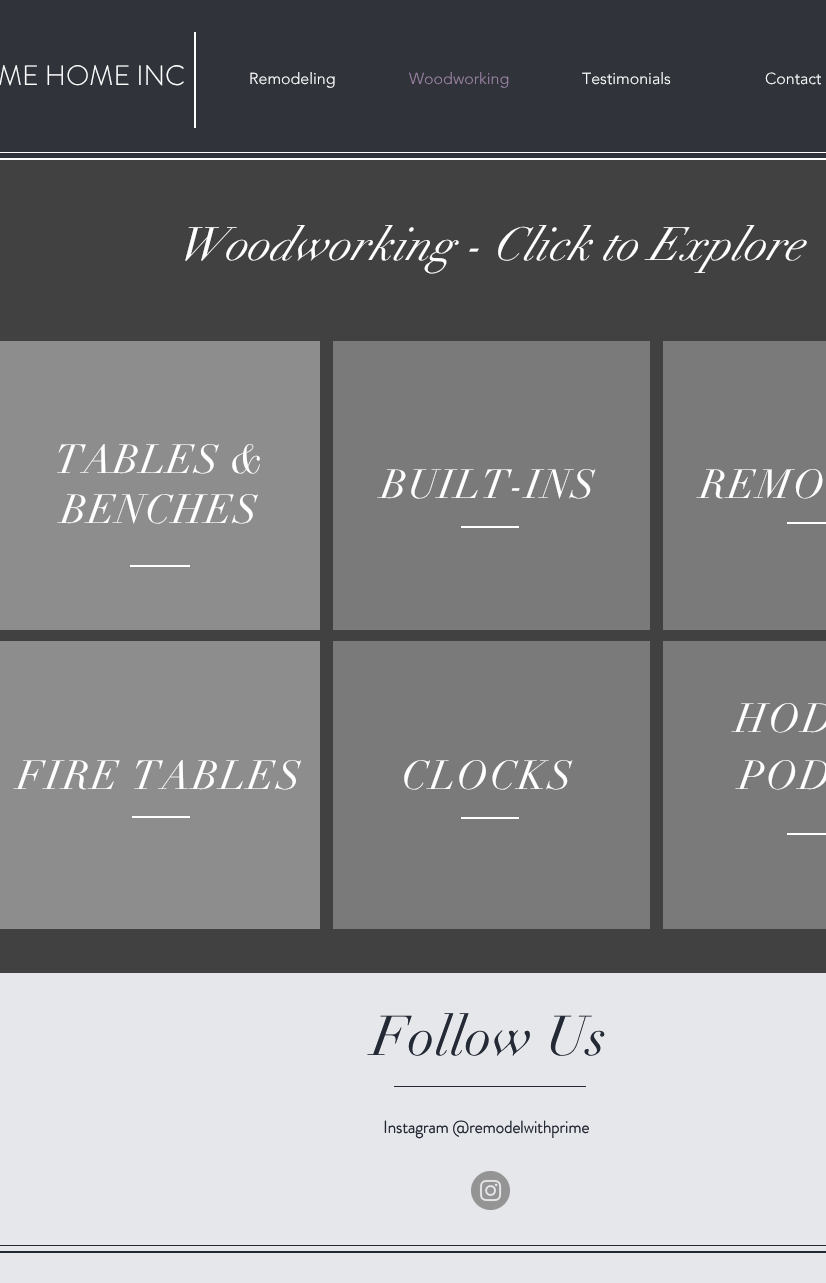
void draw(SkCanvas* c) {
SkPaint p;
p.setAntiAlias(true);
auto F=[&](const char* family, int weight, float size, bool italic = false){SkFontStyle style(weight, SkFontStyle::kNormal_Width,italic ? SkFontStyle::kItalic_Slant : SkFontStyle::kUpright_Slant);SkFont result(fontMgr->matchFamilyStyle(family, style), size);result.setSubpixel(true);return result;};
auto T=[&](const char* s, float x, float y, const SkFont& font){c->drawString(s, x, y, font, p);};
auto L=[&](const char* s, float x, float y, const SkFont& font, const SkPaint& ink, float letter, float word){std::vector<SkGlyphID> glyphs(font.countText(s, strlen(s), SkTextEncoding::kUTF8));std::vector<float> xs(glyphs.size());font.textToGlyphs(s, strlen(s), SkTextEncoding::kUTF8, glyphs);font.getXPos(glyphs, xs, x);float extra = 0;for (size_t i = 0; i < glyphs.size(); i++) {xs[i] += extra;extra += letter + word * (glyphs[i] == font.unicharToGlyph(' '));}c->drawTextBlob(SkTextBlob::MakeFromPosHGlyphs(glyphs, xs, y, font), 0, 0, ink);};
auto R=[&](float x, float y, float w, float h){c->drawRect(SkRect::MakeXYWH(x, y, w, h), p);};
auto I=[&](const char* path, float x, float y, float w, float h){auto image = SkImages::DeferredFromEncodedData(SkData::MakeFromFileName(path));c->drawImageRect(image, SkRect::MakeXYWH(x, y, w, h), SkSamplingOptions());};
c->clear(0xff414141);
p.setColor(0xff30333a);
R(0,0,826,158);
auto f1 = F("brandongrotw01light",300,28);
p.setColor(0xffffffff);
T("ME HOME INC",-2,85,f1);
R(194,32,2,96);
auto f2 = F("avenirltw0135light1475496",300,16);
T("Remodeling",249,84,f2);
p.setColor(0xff9c83a5);
T("Woodworking",409,84,f2);
p.setColor(0xffffffff);
T("Testimonials",582,84,f2);
T("Contact",765,84,f2);
R(0,152,826,1);
R(0,158,826,2);
auto f3 = F("didot",400,46,true);
T("Woodworking - Click to Explore",177,260,f3);
p.setColor(0xff8d8d8d);
R(0,341,320,289);
auto f4 = F("didot",400,40);
p.setColor(0xffffffff);
L("TABLES &",55,473,f4,p,1,0);
L("BENCHES",61,523,f4,p,1,0);
R(130,565,60,2);
p.setColor(0xff7a7a7a);
R(333,341,317,289);
p.setColor(0xffffffff);
R(461,526,58,2);
p.setColor(0xff7a7a7a);
R(663,341,163,289);
p.setColor(0xffffffff);
L("REMO",700,498,f4,p,2,0);
R(787,522,39,2);
L("BUILT-INS",381,498,f4,p,1,0);
p.setColor(0xff8d8d8d);
R(0,641,320,288);
p.setColor(0xffffffff);
L("FIRE TABLES",17,789,f4,p,2,0);
R(132,816,58,2);
p.setColor(0xff7a7a7a);
R(333,641,317,288);
p.setColor(0xffffffff);
L("CLOCKS",402,789,f4,p,2,0);
R(461,817,58,2);
p.setColor(0xff7a7a7a);
R(663,641,163,288);
p.setColor(0xffffffff);
L("HOD",735,732,f4,p,2,0);
L("POD",739,789,f4,p,2,0);
R(787,833,39,2);
p.setColor(0xffe6e7ea);
R(0,973,826,310);
auto f5 = F("didot",400,55);
p.setColor(0xff242a35);
T("Follow Us",372,1055,f5);
R(394,1086,192,1);
auto f6 = F("brandongrotw01light",700,17);
T("Instagram @remodelwithprime",383,1133,f6);
I("1.png",471,1171,39,39);
R(0,1245,826,1);
R(0,1251,826,2);
}
